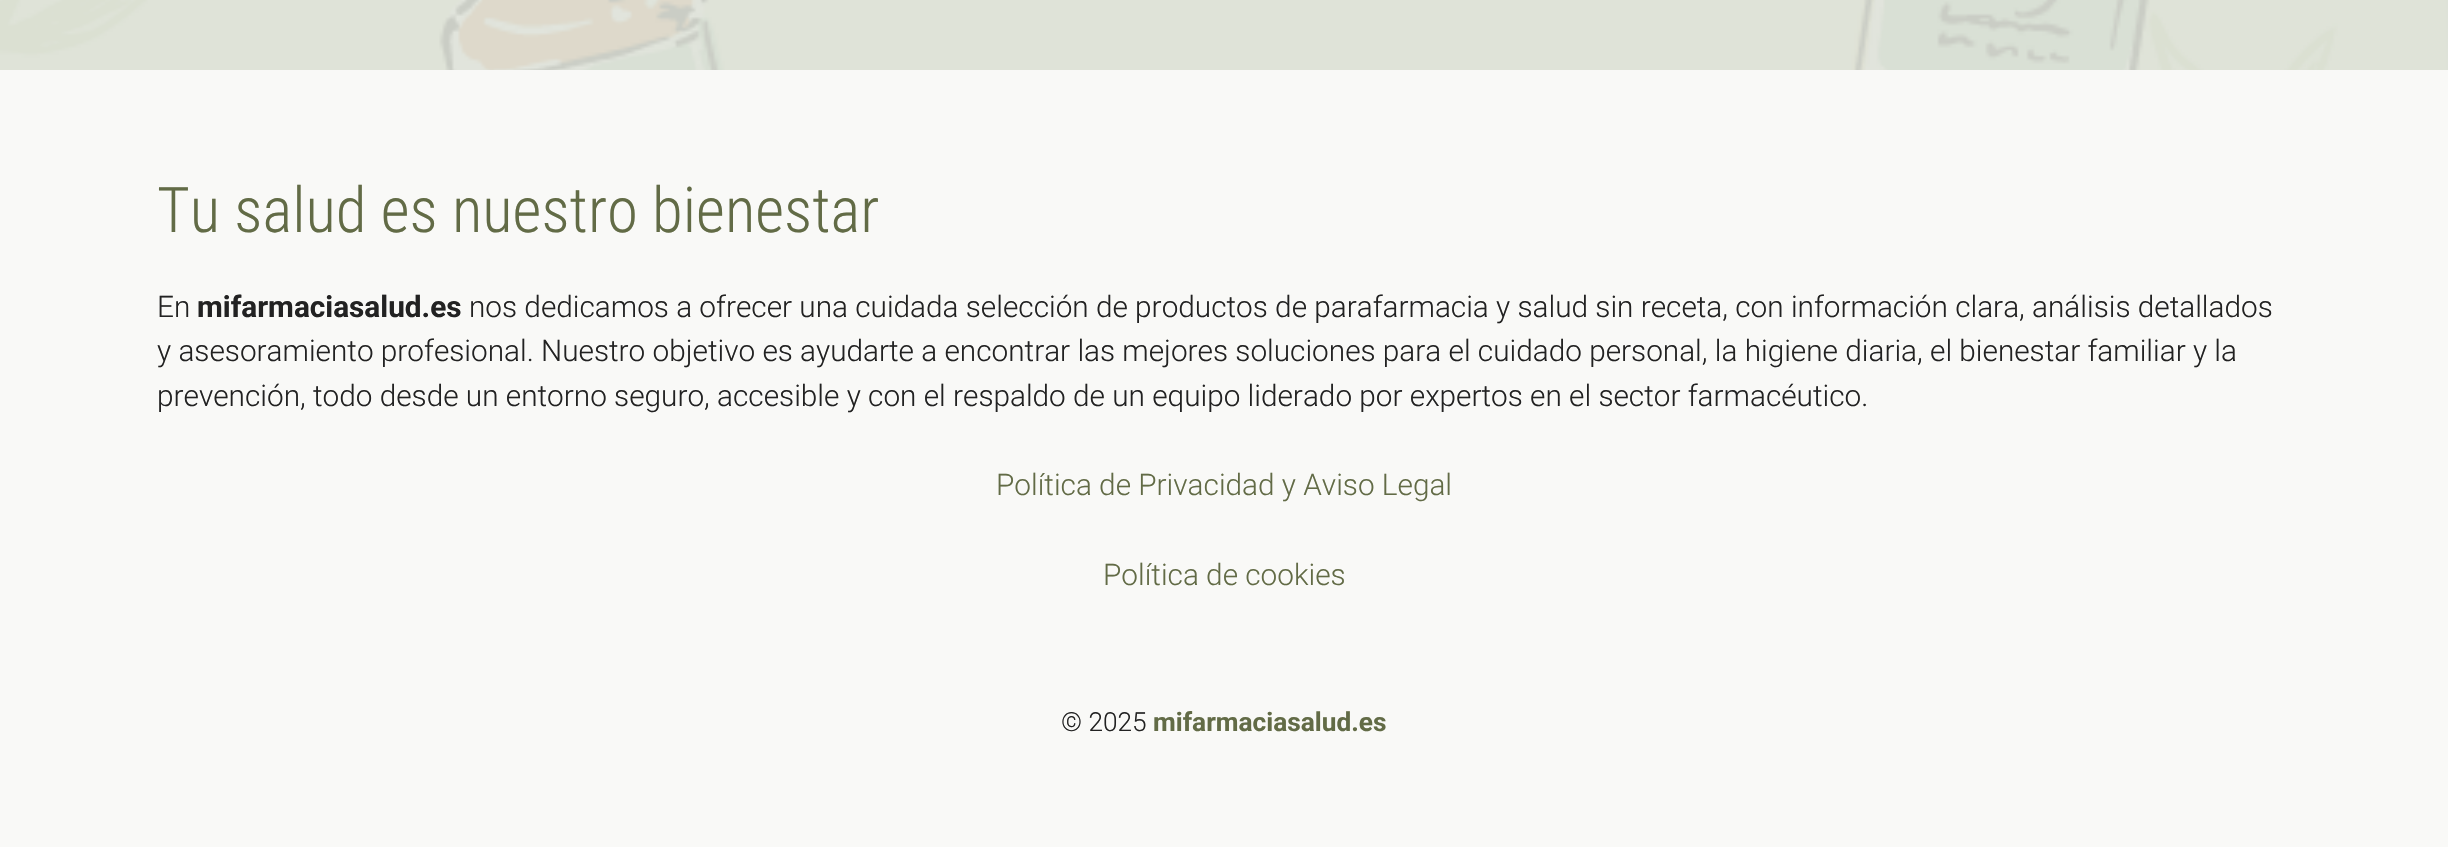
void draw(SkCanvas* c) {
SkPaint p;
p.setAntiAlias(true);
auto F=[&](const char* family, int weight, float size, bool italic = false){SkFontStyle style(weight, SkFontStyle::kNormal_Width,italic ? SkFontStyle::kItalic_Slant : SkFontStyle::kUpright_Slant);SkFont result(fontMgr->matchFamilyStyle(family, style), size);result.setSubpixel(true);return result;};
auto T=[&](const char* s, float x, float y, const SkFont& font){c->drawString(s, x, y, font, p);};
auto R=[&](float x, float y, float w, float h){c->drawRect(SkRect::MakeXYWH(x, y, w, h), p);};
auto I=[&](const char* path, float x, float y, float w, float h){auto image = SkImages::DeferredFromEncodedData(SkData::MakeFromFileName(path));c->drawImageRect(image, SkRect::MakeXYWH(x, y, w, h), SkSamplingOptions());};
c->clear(0xffdddddd);
I("1.png",0,0,2448,70);
p.setColor(0xfff9f9f7);
R(0,70,2448,777);
auto f1 = F("Roboto Condensed",300,63);
p.setColor(0xff626b46);
T("Tu salud es nuestro bienestar",157,232,f1);
auto f2 = F("Roboto",300,29.75);
p.setColor(0xff222222);
T("En",157,317,f2);
auto f3 = F("Roboto",700,29.75);
T("mifarmaciasalud.es",197,317,f3);
T("nos dedicamos a ofrecer una cuidada selección de productos de parafarmacia y salud sin receta, con información clara, análisis detallados",469,317,f2);
T("y asesoramiento profesional. Nuestro objetivo es ayudarte a encontrar las mejores soluciones para el cuidado personal, la higiene diaria, el bienestar familiar y la",157,361,f2);
T("prevención, todo desde un entorno seguro, accesible y con el respaldo de un equipo liderado por expertos en el sector farmacéutico.",157,406,f2);
p.setColor(0xff626b46);
T("Política de Privacidad y Aviso Legal",996,495,f2);
T("Política de cookies",1103,585,f2);
auto f4 = F("Roboto",300,26.25);
p.setColor(0xff222222);
T("© 2025",1061,731,f4);
auto f5 = F("Roboto",700,26.25);
p.setColor(0xff626b46);
T("mifarmaciasalud.es",1153,731,f5);
}
